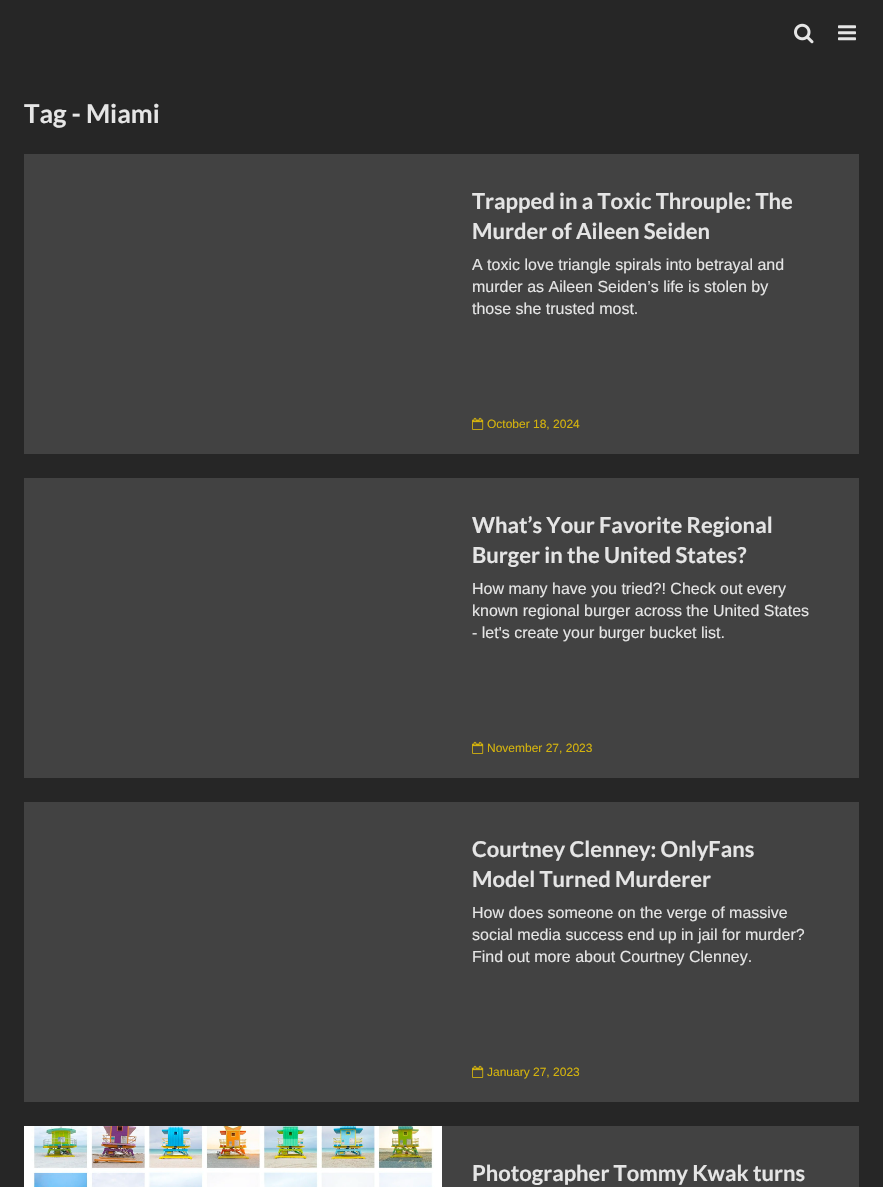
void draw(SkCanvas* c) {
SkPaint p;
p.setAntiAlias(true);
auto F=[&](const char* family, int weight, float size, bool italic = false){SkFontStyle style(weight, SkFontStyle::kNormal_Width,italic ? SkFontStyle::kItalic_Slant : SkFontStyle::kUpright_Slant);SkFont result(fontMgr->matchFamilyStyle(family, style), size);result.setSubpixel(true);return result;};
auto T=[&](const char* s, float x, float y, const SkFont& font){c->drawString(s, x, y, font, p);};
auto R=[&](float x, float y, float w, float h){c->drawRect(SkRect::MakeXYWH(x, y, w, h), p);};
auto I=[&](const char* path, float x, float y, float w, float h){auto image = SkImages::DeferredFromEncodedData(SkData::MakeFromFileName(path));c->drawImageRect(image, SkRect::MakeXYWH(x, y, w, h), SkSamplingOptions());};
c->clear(0xff262626);
I("1.png",794,23,20,21);
I("2.png",838,25,18,16);
auto f1 = F("Lato",700,26);
p.setColor(0xffe5e5e5);
T("Tag - Miami",24,123,f1);
p.setColor(0xff424242);
R(24,154,835,300);
c->save();
c->clipRect(SkRect::MakeXYWH(472,178,339,197));
auto f2 = F("Lato",700,22);
p.setColor(0xffe5e5e5);
T("Trapped in a Toxic Throuple: The",472,209,f2);
c->restore();
T("Murder of Aileen Seiden",472,239,f2);
auto f3 = F("Liberation Sans",400,16);
T("A toxic love triangle spirals into betrayal and",472,270,f3);
T("murder as Aileen Seiden’s life is stolen by",472,292,f3);
T("those she trusted most.",472,314,f3);
I("3.png",472,417,12,13);
auto f4 = F("Liberation Sans",400,12);
p.setColor(0xffd4b30d);
T("October 18, 2024",487,428,f4);
p.setColor(0xff424242);
R(24,478,835,300);
p.setColor(0xffe5e5e5);
T("What’s Your Favorite Regional",472,533,f2);
T("Burger in the United States?",472,563,f2);
T("How many have you tried?! Check out every",472,594,f3);
T("known regional burger across the United States",472,616,f3);
T("- let's create your burger bucket list.",472,638,f3);
I("3.png",472,741,12,13);
p.setColor(0xffd4b30d);
T("November 27, 2023",487,752,f4);
p.setColor(0xff424242);
R(24,802,835,300);
p.setColor(0xffe5e5e5);
T("Courtney Clenney: OnlyFans",472,857,f2);
T("Model Turned Murderer",472,887,f2);
T("How does someone on the verge of massive",472,918,f3);
T("social media success end up in jail for murder?",472,940,f3);
T("Find out more about Courtney Clenney.",472,962,f3);
I("3.png",472,1065,12,13);
p.setColor(0xffd4b30d);
T("January 27, 2023",487,1076,f4);
p.setColor(0xff424242);
R(442,1126,417,61);
I("4.png",24,1126,418,61);
p.setColor(0xffe5e5e5);
T("Photographer Tommy Kwak turns",472,1181,f2);
}
